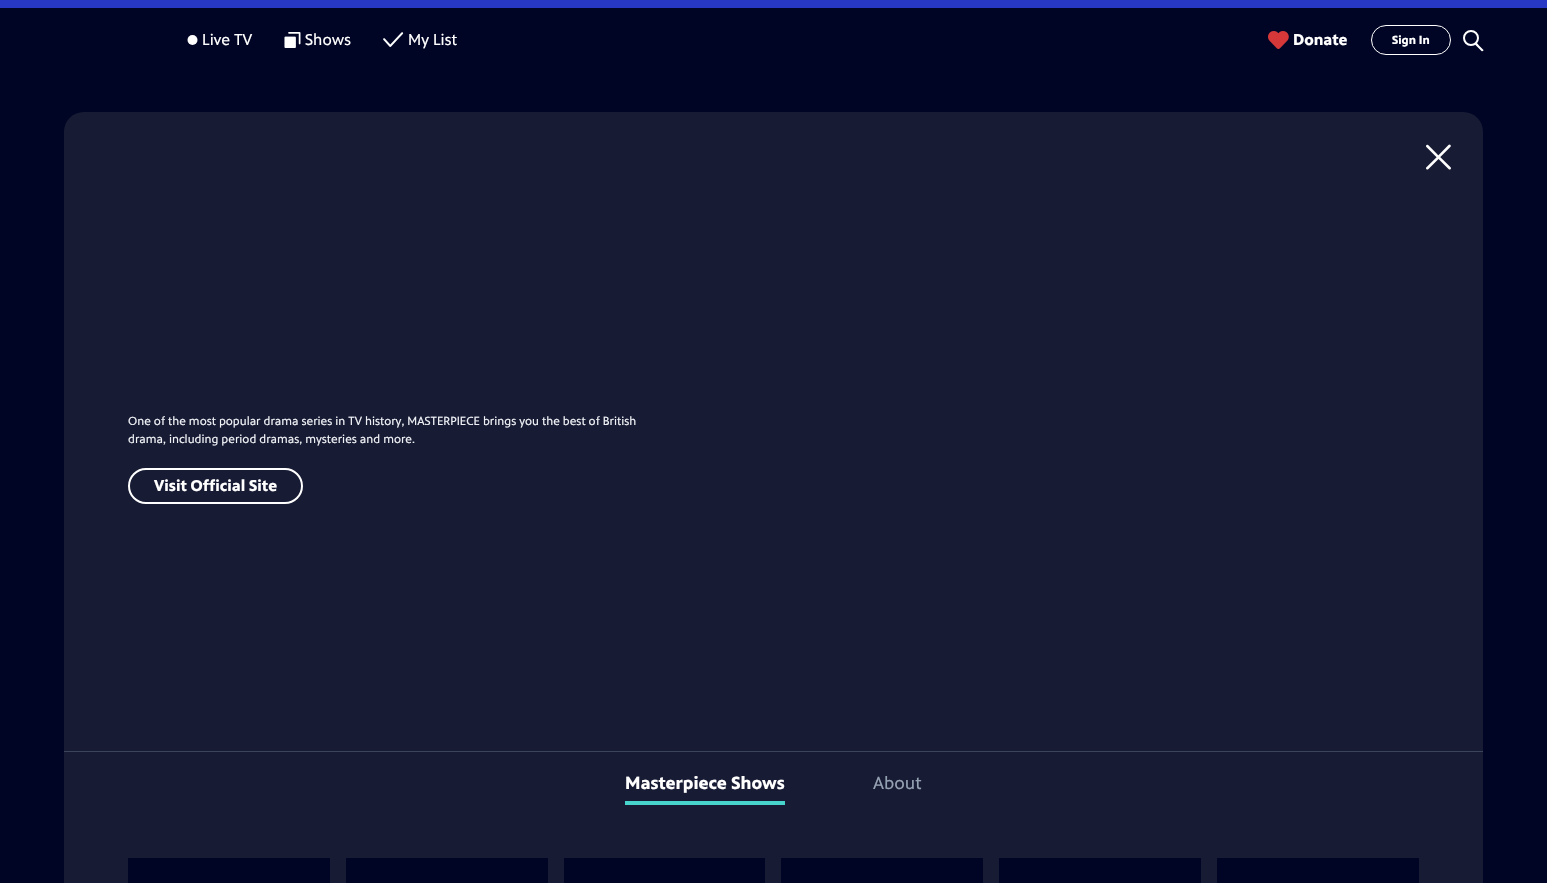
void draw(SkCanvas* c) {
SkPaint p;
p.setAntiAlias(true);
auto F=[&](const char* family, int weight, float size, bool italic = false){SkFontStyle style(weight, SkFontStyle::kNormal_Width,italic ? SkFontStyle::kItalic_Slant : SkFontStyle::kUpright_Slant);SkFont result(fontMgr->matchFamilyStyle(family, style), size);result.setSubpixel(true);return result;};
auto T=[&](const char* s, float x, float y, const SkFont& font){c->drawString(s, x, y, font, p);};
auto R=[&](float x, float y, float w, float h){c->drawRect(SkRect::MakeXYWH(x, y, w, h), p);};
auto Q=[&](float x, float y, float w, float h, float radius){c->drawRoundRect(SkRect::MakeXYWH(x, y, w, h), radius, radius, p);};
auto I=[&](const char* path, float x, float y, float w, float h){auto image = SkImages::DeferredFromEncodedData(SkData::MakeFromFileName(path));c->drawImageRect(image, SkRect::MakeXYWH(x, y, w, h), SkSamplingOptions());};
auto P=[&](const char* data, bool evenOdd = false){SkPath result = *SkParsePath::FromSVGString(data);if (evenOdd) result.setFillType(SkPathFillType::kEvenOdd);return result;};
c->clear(0xff000525);
p.setColor(0xff2638c4);
R(0,0,1547,8);
p.setColor(0xffffffff);
c->drawCircle(192.5,40,5,p);
auto f1 = F("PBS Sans",400,16);
T("Live TV",202,45,f1);
I("1.png",284,32,17,16);
T("Shows",305,45,f1);
I("2.png",383,32,21,15);
T("My List",408,45,f1);
I("3.png",1268,31,21,18);
auto f2 = F("PBS Sans",700,16);
T("Donate",1293,45,f2);
p.setStroke(true);
p.setStrokeWidth(1);
c->drawRoundRect(SkRect::MakeXYWH(1371.5,25.5,79,29),14.5,14.5,p);
auto f3 = F("PBS Sans",700,12);
p.setStroke(false);
T("Sign In",1392,44,f3);
p.setStroke(true);
p.setStrokeWidth(2);
c->drawCircle(1471,38,7,p);
p.setStroke(false);
c->drawPath(P("M1481.5 51l-7-7l.5-1c1-1.5 3 1.5 3.5 2l5 5c0 1-1 1.5-2 1z"),p);
p.setColor(0xff171b33);
Q(64,112,1419,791,20);
I("4.png",1426,144,25,26);
auto f4 = F("PBS Sans",400,12);
p.setColor(0xffeef0f5);
T("One of the most popular drama series in TV history, MASTERPIECE brings you the best of British",128,425,f4);
T("drama, including period dramas, mysteries and more.",128,443,f4);
p.setStroke(true);
p.setColor(0xffffffff);
c->drawRoundRect(SkRect::MakeXYWH(129,469,173,34),17,17,p);
p.setStroke(false);
T("Visit Official Site",154,491,f2);
p.setColor(0xff3a455c);
R(64,751,1419,1);
auto f5 = F("PBS Sans",700,18);
p.setColor(0xffffffff);
T("Masterpiece Shows",625,789,f5);
p.setColor(0xff46d4cd);
R(625,801,160,4);
auto f6 = F("PBS Sans",400,18);
p.setColor(0xff94a1b2);
T("About",873,789,f6);
p.setColor(0xff000525);
R(128,858,202,25);
R(346,858,202,25);
R(564,858,201,25);
R(781,858,202,25);
R(999,858,202,25);
R(1217,858,202,25);
}
